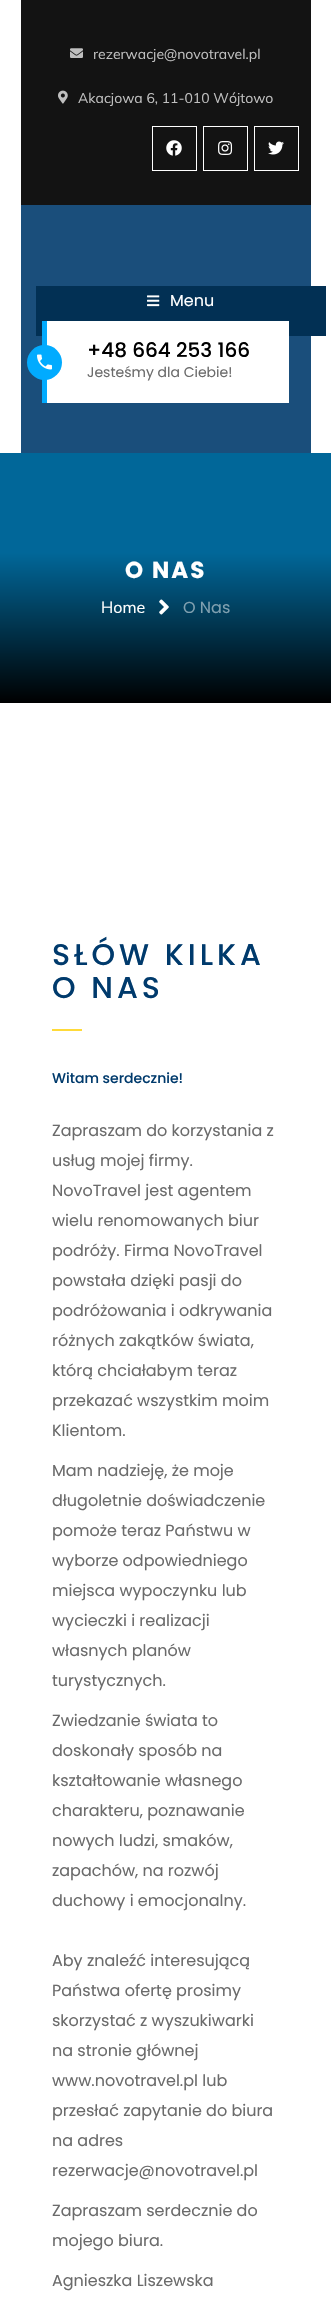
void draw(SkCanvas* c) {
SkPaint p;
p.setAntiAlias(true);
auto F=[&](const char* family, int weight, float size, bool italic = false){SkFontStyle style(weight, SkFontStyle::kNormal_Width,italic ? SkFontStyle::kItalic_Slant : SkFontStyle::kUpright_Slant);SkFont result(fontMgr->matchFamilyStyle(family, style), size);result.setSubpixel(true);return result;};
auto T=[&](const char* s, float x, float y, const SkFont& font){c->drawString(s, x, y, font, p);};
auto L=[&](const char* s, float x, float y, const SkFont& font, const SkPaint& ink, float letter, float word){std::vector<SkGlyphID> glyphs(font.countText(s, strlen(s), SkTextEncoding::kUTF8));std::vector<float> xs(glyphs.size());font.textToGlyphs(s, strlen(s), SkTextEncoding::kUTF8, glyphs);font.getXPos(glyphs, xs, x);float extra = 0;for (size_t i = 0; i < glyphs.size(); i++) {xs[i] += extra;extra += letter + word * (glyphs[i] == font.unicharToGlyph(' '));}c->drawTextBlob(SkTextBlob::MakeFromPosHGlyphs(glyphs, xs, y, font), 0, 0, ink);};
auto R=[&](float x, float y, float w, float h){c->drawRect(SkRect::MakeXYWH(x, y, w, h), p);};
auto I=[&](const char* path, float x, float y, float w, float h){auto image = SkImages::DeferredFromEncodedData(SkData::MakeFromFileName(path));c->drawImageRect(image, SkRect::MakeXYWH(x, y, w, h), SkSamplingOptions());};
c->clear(0xffffffff);
p.setColor(0xff131313);
R(21,0,290,205);
I("1.png",70,48,13,10);
auto f1 = F("Muli",400,14);
p.setColor(0xffbfbfbf);
T("rezerwacje@novotravel.pl",93,59,f1);
I("2.png",58,90,10,14);
T("Akacjowa 6, 11-010 Wójtowo",78,103,f1);
p.setStroke(true);
p.setStrokeWidth(1);
p.setColor(0xffffffff);
c->drawRect(SkRect::MakeXYWH(152.5,126.5,44,44),p);
I("3.png",166,140,16,16);
c->drawRect(SkRect::MakeXYWH(203.5,126.5,44,44),p);
I("4.png",218,141,15,14);
c->drawRect(SkRect::MakeXYWH(254.5,126.5,44,44),p);
I("5.png",268,141,16,14);
p.setStroke(false);
p.setColor(0xff1a4e7b);
R(21,205,290,248);
p.setColor(0xff023054);
R(36,286,290,50);
I("6.png",147,295,13,12);
auto f2 = F("Poppins",400,16);
p.setColor(0xffffffff);
T("Menu",170,306,f2);
p.setColor(0xff01abff);
R(42,321,5,82);
p.setColor(0xffffffff);
R(47,321,242,82);
p.setColor(0xff01abff);
c->drawCircle(44.5,362.5,17.5,p);
I("7.png",37,354,15,16);
auto f3 = F("Poppins",500,20);
p.setColor(0xff000000);
T("+48 664 253 166",87,357,f3);
auto f4 = F("Poppins",400,14);
p.setColor(0xff6b6b6b);
T("Jesteśmy dla Ciebie!",87,377,f4);
{
const SkColor colors[] = {0xff000000,0xff016799};
const float stops[] = {0,.6};
const SkPoint ends[] = {{166,703}, {166,453}};
p.setShader(SkGradientShader::MakeLinear(ends, colors, stops, 2, SkTileMode::kClamp));
p.setAlpha(255);
}
R(0,453,331,250);
auto f5 = F("Poppins",700,23);
p.setShader(nullptr);
p.setColor(0xffffffff);
L("O NAS",125,578,f5,p,2,0);
auto f6 = F("Muli",400,16);
T("Home",101,613,f6);
I("8.png",159,599,10,16);
p.setColor(0xff80a0b0);
T("O Nas",183,613,f2);
auto f7 = F("Poppins",500,30);
p.setColor(0xff003a6c);
L("SŁÓW KILKA",52,965,f7,p,4,0);
L("O NAS",52,998,f7,p,4,0);
p.setColor(0xffffda39);
R(52,1029,30,2);
auto f8 = F("Poppins",500,14);
p.setColor(0xff003a6c);
T("Witam serdecznie!",52,1083,f8);
p.setColor(0xff6b6b6b);
T("Zapraszam do korzystania z",52,1136,f2);
T("usług mojej firmy.",52,1166,f2);
T("NovoTravel jest agentem",52,1196,f2);
T("wielu renomowanych biur",52,1226,f2);
T("podróży. Firma NovoTravel",52,1256,f2);
T("powstała dzięki pasji do",52,1286,f2);
T("podróżowania i odkrywania",52,1316,f2);
T("różnych zakątków świata,",52,1346,f2);
T("którą chciałabym teraz",52,1376,f2);
T("przekazać wszystkim moim",52,1406,f2);
T("Klientom.",52,1436,f2);
T("Mam nadzieję, że moje",52,1476,f2);
T("długoletnie doświadczenie",52,1506,f2);
T("pomoże teraz Państwu w",52,1536,f2);
T("wyborze odpowiedniego",52,1566,f2);
T("miejsca wypoczynku lub",52,1596,f2);
T("wycieczki i realizacji",52,1626,f2);
T("własnych planów",52,1656,f2);
T("turystycznych.",52,1686,f2);
T("Zwiedzanie świata to",52,1726,f2);
T("doskonały sposób na",52,1756,f2);
T("kształtowanie własnego",52,1786,f2);
T("charakteru, poznawanie",52,1816,f2);
T("nowych ludzi, smaków,",52,1846,f2);
T("zapachów, na rozwój",52,1876,f2);
T("duchowy i emocjonalny.",52,1906,f2);
T("Aby znaleźć interesującą",52,1966,f2);
T("Państwa ofertę prosimy",52,1996,f2);
T("skorzystać z wyszukiwarki",52,2026,f2);
T("na stronie głównej",52,2056,f2);
T("www.novotravel.pl lub",52,2086,f2);
T("przesłać zapytanie do biura",52,2116,f2);
T("na adres",52,2146,f2);
T("rezerwacje@novotravel.pl",52,2176,f2);
T("Zapraszam serdecznie do",52,2216,f2);
T("mojego biura.",52,2246,f2);
T("Agnieszka Liszewska",52,2286,f2);
}
